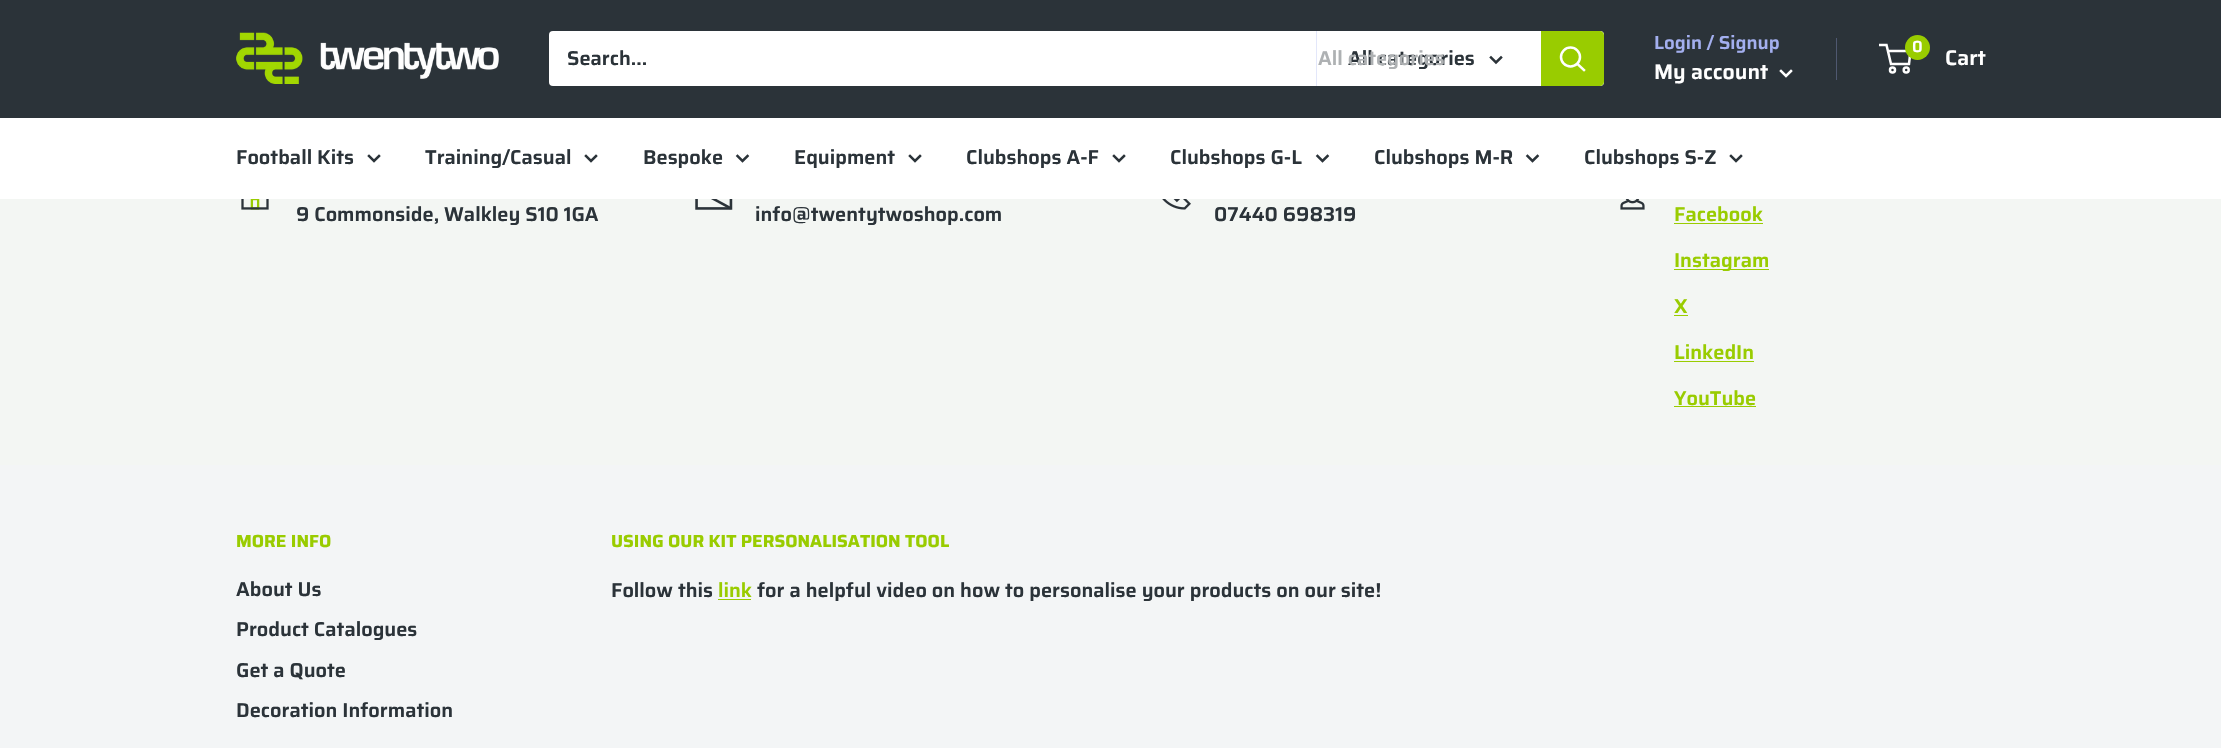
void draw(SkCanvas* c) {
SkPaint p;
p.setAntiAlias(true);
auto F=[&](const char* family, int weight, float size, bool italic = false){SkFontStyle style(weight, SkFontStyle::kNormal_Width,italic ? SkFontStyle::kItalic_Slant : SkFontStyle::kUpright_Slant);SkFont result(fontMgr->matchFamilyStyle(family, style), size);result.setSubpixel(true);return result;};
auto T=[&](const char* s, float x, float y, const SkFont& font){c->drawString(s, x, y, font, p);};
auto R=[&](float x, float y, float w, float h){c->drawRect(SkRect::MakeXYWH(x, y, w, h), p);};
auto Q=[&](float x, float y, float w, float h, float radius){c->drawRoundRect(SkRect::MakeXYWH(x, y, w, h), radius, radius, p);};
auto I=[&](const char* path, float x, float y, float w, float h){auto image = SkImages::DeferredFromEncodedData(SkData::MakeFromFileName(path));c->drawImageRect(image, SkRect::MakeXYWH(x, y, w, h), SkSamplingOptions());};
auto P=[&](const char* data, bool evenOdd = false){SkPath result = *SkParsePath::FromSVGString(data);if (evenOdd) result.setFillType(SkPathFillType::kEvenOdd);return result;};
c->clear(0xfff3f6f3);
p.setColor(0xff2b3339);
R(0,0,2221,118);
I("1.png",236,32,263,52);
p.setColor(0xffffffff);
Q(549,31,1055,55,4);
auto f1 = F("Saira",600,20);
p.setColor(0xff2b3339);
T("Search...",567,65,f1);
p.setColor(0xffe3e7fa);
R(1316,31,1,55);
p.setColor(0xff2b3339);
T("All categories",1348,65,f1);
p.setColor(0xffaeb1b3);
T("All categories",1318,65,f1);
p.setStroke(true);
p.setStrokeWidth(2.5);
p.setStrokeCap(SkPaint::kSquare_Cap);
p.setColor(0xff2b3339);
c->drawPath(P("M1501 57.5l-5 5l-5-5"),p);
p.setStroke(false);
p.setColor(0xff99cc00);
c->drawPath(P("M1541 31h59c2 0 4 2 4 4v47c0 2-2 4-4 4h-59z"),p);
p.setStroke(true);
p.setColor(0xffffffff);
c->drawPath(P("M1584 70l-6.5-6"),p);
p.setStrokeCap(SkPaint::kButt_Cap);
c->drawCircle(1570.5,57,9.5,p);
auto f2 = F("Saira",600,18.75);
p.setStroke(false);
p.setColor(0xffa3afef);
T("Login / Signup",1654,49,f2);
p.setColor(0xff4f5870);
R(1836,38,1,42);
auto f3 = F("Saira",600,21.25);
p.setColor(0xffffffff);
T("My account",1654,79,f3);
p.setStroke(true);
p.setStrokeCap(SkPaint::kSquare_Cap);
c->drawPath(P("M1791 71l-5 5l-5-5"),p);
p.setStrokeCap(SkPaint::kButt_Cap);
c->drawCircle(1892.5,70,2.5,p);
c->drawCircle(1906.2,70,2.5,p);
c->drawPath(P("M1888 51h22.5l-1.5 13h-18l-4.5-19h-7.5"),p);
p.setStroke(false);
p.setColor(0xff99cc00);
c->drawCircle(1917.5,47.5,12.5,p);
auto f4 = F("Saira",600,16);
p.setColor(0xffffffff);
T("0",1912,52,f4);
T("Cart",1945,65,f3);
R(0,118,2221,81);
p.setColor(0xff2b3339);
T("Football Kits",236,164,f1);
p.setStroke(true);
p.setStrokeCap(SkPaint::kSquare_Cap);
c->drawPath(P("M379 156l-5 5l-5-5"),p);
p.setStroke(false);
T("Training/Casual",425,164,f1);
p.setStroke(true);
c->drawPath(P("M596 156l-5 5l-5-5"),p);
p.setStroke(false);
T("Bespoke",643,164,f1);
p.setStroke(true);
c->drawPath(P("M747.5 156l-5 5l-5-5"),p);
p.setStroke(false);
T("Equipment",794,164,f1);
p.setStroke(true);
c->drawPath(P("M920 156l-5 5l-5-5"),p);
p.setStroke(false);
T("Clubshops A-F",966,164,f1);
p.setStroke(true);
c->drawPath(P("M1124 156l-5 5l-5-5"),p);
p.setStroke(false);
T("Clubshops G-L",1170,164,f1);
p.setStroke(true);
c->drawPath(P("M1327.5 156l-5 5l-5-5"),p);
p.setStroke(false);
T("Clubshops M-R",1374,164,f1);
p.setStroke(true);
c->drawPath(P("M1537.5 156l-5 5l-5-5"),p);
p.setStroke(false);
T("Clubshops S-Z",1584,164,f1);
p.setStroke(true);
c->drawPath(P("M1741 156l-5 5l-5-5"),p);
I("2.png",241,199,28,11);
p.setStroke(false);
T("9 Commonside, Walkley S10 1GA",296,221,f1);
I("3.png",695,199,38,11);
T("info@twentytwoshop.com",755,221,f1);
I("4.png",1162,199,29,11);
T("07440 698319",1214,221,f1);
I("5.png",1620,199,25,11);
p.setColor(0xff99cc00);
T("Facebook",1674,221,f1);
R(1674,223,89,1);
R(1674,269,95,1);
T("Instagram",1674,267,f1);
T("X",1674,313,f1);
R(1674,315,14,1);
T("LinkedIn",1674,359,f1);
R(1674,361,80,1);
T("YouTube",1674,405,f1);
R(1674,406,82,1);
p.setColor(0xfff3f5f6);
R(0,465,2221,283);
auto f5 = F("Saira",700,17.5);
p.setColor(0xff99cc00);
T("MORE INFO",236,547,f5);
p.setColor(0xff2b3339);
T("About Us",236,596,f1);
T("Product Catalogues",236,636,f1);
T("Get a Quote",236,677,f1);
T("Decoration Information",236,717,f1);
p.setColor(0xff99cc00);
T("USING OUR KIT PERSONALISATION TOOL",611,547,f5);
p.setColor(0xff2b3339);
T("Follow this",611,597,f1);
p.setColor(0xff99cc00);
T("link",718,597,f1);
R(718,599,33,1);
p.setColor(0xff2b3339);
T("for a helpful video on how to personalise your products on our site!",757,597,f1);
}
